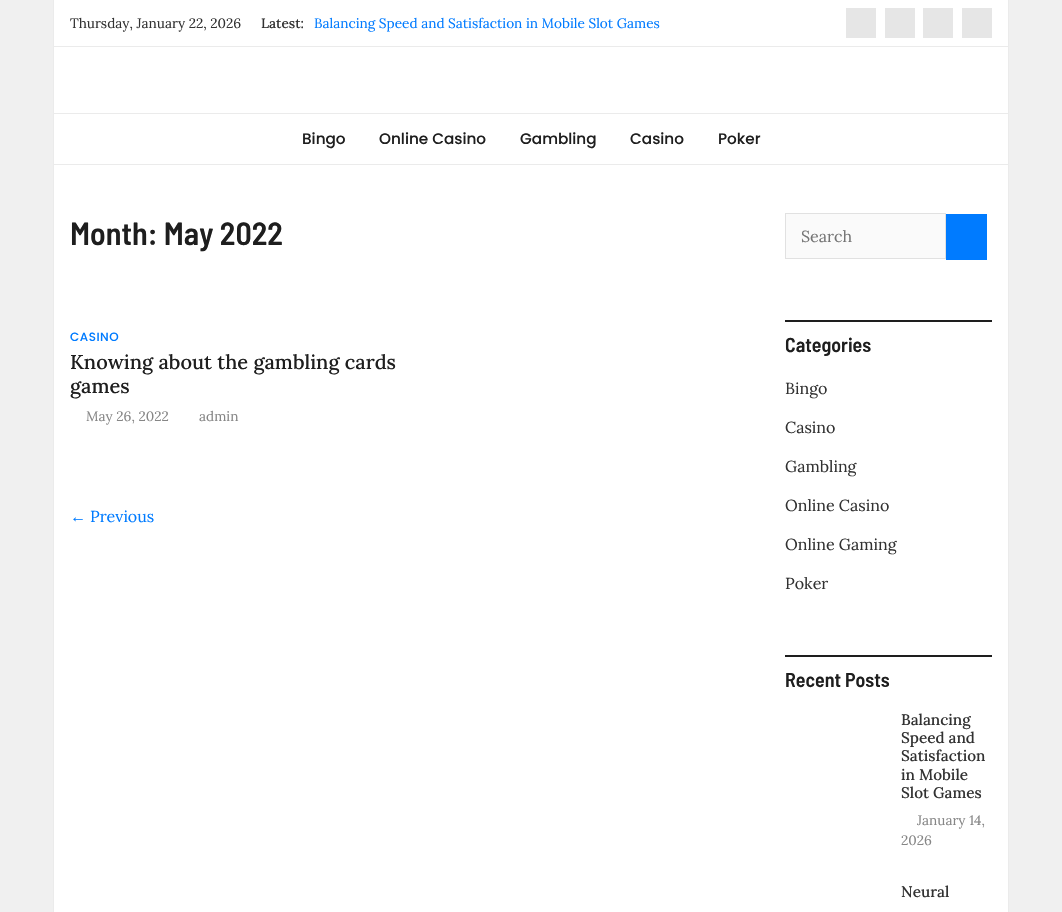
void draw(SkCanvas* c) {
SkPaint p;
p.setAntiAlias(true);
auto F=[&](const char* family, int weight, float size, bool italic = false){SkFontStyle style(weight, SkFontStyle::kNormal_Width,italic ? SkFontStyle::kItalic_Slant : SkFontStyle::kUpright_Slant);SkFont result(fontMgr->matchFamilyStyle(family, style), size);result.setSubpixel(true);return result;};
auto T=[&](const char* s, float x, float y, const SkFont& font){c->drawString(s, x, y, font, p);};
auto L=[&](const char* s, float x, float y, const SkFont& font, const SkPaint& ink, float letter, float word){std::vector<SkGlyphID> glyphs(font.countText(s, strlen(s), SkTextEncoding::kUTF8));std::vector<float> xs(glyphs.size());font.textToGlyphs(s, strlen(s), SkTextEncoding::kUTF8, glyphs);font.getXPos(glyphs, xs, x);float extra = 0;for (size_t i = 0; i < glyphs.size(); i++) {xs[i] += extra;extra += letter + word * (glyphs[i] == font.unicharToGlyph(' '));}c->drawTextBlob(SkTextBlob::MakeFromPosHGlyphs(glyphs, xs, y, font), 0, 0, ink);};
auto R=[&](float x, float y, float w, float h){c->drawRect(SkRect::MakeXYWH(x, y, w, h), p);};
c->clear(0xfff0f0f0);
p.setColor(0xffffffff);
R(54,0,954,912);
p.setColor(0xffebebeb);
R(1008,0,1,912);
R(53,0,1,912);
R(54,46,954,1);
auto f1 = F("Lora",400,13.6);
p.setColor(0xff323232);
T("Thursday, January 22, 2026",70,28,f1);
auto f2 = F("Lora",500,13.6);
T("Latest:",261,28,f2);
p.setColor(0xff007bff);
T("Balancing Speed and Satisfaction in Mobile Slot Games",314,28,f1);
p.setColor(0xffe6e6e6);
R(846,8,30,30);
R(885,8,30,30);
R(923,8,30,30);
R(962,8,30,30);
p.setColor(0xffebebeb);
R(54,113,954,1);
R(54,164,954,1);
auto f3 = F("Poppins",500,15.25);
p.setColor(0xff1e1e1e);
T("Bingo",302,144,f3);
T("Online Casino",379,144,f3);
T("Gambling",520,144,f3);
T("Casino",630,144,f3);
T("Poker",718,144,f3);
auto f4 = F("Barlow Semi Condensed",600,32);
T("Month: May 2022",70,245,f4);
auto f5 = F("Poppins",500,12);
p.setColor(0xff007bff);
L("CASINO",70,341,f5,p,.5,0);
auto f6 = F("Lora",500,20);
p.setColor(0xff1e1e1e);
T("Knowing about the gambling cards",70,369,f6);
T("games",70,393,f6);
p.setColor(0xff868686);
T("May 26, 2022",86,421,f1);
T("admin",199,421,f1);
auto f7 = F("Liberation Serif",400,16);
p.setColor(0xff007bff);
T("←",70,522,f7);
auto f8 = F("Lora",400,16);
T("Previous",90,522,f8);
p.setColor(0xfffafafa);
c->drawRect(SkRect::MakeXYWH(785.5,213.5,160,45),p);
p.setStroke(true);
p.setStrokeWidth(1);
p.setColor(0xffe1e1e1);
c->drawRect(SkRect::MakeXYWH(785.5,213.5,160,45),p);
p.setStroke(false);
p.setColor(0xff757575);
T("Search",801,242,f8);
p.setColor(0xff007bff);
R(946,214,41,46);
p.setColor(0xff1e1e1e);
R(785,320,207,2);
auto f9 = F("Barlow Semi Condensed",600,20);
T("Categories",785,352,f9);
p.setColor(0xff323232);
T("Bingo",785,394,f8);
T("Casino",785,433,f8);
T("Gambling",785,472,f8);
T("Online Casino",785,511,f8);
T("Online Gaming",785,550,f8);
T("Poker",785,589,f8);
p.setColor(0xff1e1e1e);
R(785,655,207,2);
T("Recent Posts",785,687,f9);
auto f10 = F("Lora",500,15.25);
p.setColor(0xff323232);
T("Balancing",901,725,f10);
T("Speed and",901,743,f10);
T("Satisfaction",901,761,f10);
T("in Mobile",901,780,f10);
T("Slot Games",901,798,f10);
p.setColor(0xff868686);
T("January 14,",917,825,f1);
T("2026",901,845,f1);
p.setColor(0xff323232);
T("Neural",901,897,f10);
}
